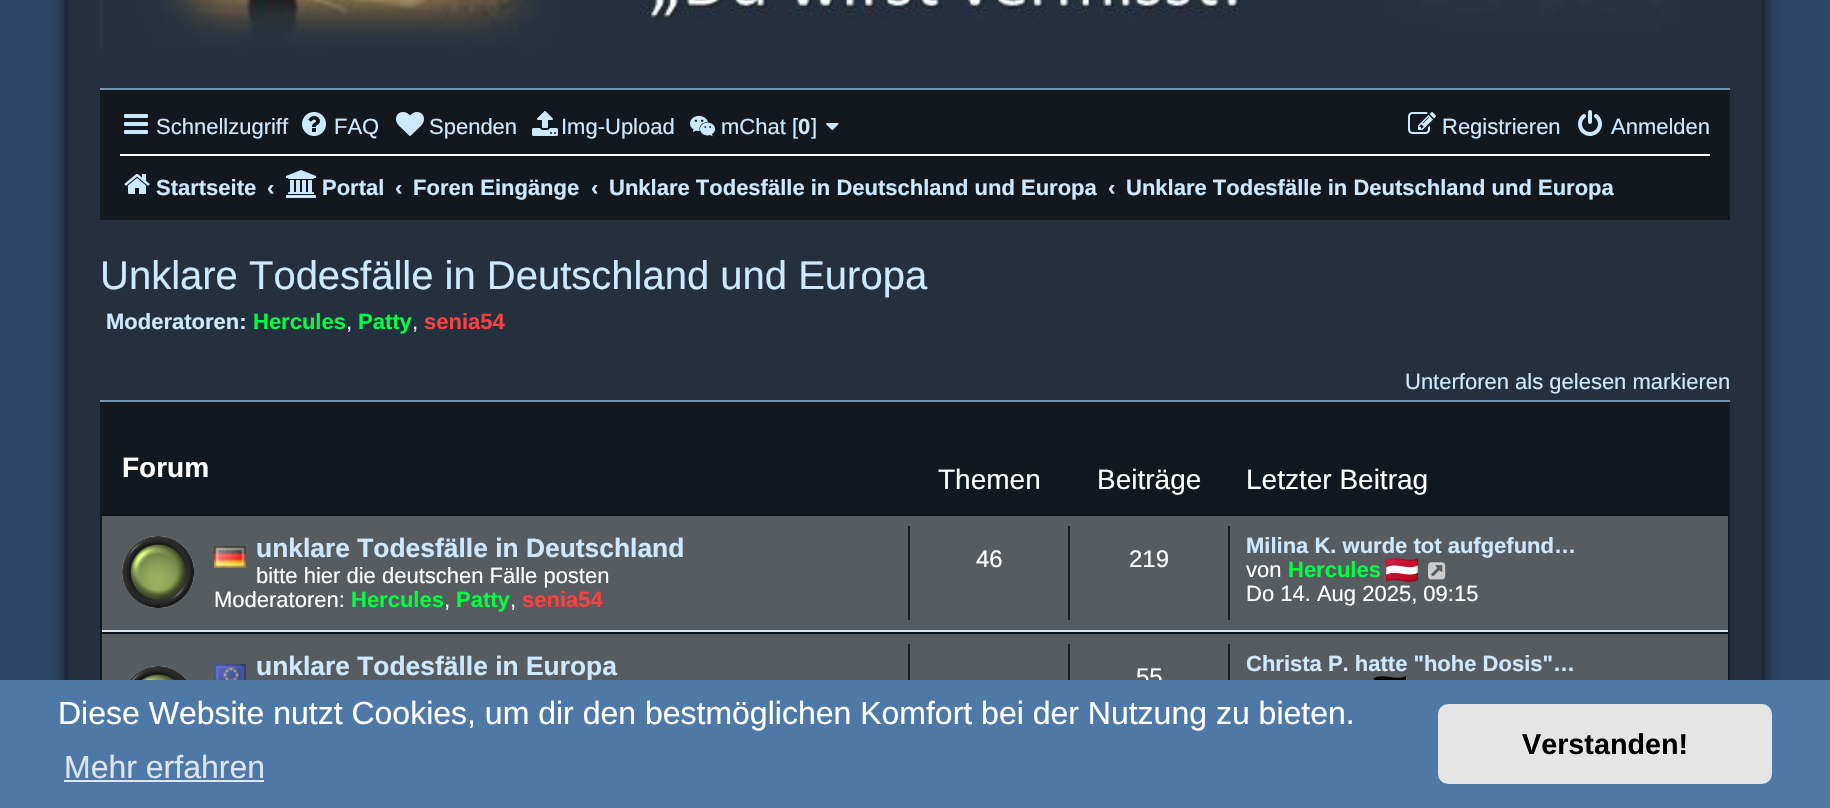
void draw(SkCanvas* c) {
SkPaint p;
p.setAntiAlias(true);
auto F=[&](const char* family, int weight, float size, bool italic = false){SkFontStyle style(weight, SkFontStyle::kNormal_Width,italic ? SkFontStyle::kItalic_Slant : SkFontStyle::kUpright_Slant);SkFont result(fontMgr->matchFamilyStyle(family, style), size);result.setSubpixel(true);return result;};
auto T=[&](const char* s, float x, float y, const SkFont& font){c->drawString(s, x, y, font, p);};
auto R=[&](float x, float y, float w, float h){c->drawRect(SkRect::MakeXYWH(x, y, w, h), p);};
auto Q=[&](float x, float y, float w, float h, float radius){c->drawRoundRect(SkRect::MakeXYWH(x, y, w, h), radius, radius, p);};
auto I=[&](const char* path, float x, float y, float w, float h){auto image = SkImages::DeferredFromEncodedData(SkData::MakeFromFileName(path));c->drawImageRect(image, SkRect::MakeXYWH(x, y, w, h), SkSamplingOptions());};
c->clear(0xff2e4563);
p.setColor(0x9e000000);
p.setMaskFilter(SkMaskFilter::MakeBlur(kNormal_SkBlurStyle, 6));
c->drawRoundRect(SkRect::MakeXYWH(64,-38,1702,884),20,20,p);
p.setMaskFilter(nullptr);
p.setColor(0xff25303e);
R(68,0,1694,680);
I("1.png",100,0,1580,49);
p.setColor(0xff13181f);
R(100,90,1630,130);
p.setColor(0xff6f95b0);
R(100,88,1630,2);
I("2.png",124,114,24,20);
auto f1 = F("Liberation Sans",400,22);
p.setColor(0xffcce9ff);
T("Schnellzugriff",156,134,f1);
I("3.png",302,112,24,24);
T("FAQ",334,134,f1);
I("4.png",396,112,28,24);
T("Spenden",429,134,f1);
I("5.png",532,111,26,25);
T("Img-Upload",561,134,f1);
I("6.png",690,115,26,22);
T("mChat [",721,134,f1);
auto f2 = F("Liberation Sans",700,22);
T("0",798,134,f2);
T("]",811,134,f1);
I("7.png",826,123,13,7);
I("8.png",1408,112,28,22);
T("Registrieren",1442,134,f1);
I("9.png",1578,110,24,26);
T("Anmelden",1611,134,f1);
p.setColor(0xffffffff);
R(120,154,1590,2);
I("10.png",124,174,26,20);
p.setColor(0xffcce9ff);
T("Startseite",156,195,f2);
T("‹",267,195,f2);
I("11.png",286,170,30,28);
T("Portal",322,195,f2);
T("‹",395,195,f2);
T("Foren Eingänge",413,195,f2);
T("‹",591,195,f2);
T("Unklare Todesfälle in Deutschland und Europa",609,195,f2);
T("‹",1108,195,f2);
T("Unklare Todesfälle in Deutschland und Europa",1126,195,f2);
auto f3 = F("Liberation Sans",400,40);
T("Unklare Todesfälle in Deutschland und Europa",100,289,f3);
T("Moderatoren:",106,329,f2);
p.setColor(0xff00ff40);
T("Hercules",253,329,f2);
p.setColor(0xffcce9ff);
T(",",346,329,f1);
p.setColor(0xff00ff40);
T("Patty",358,329,f2);
p.setColor(0xffcce9ff);
T(",",412,329,f1);
p.setColor(0xffff4040);
T("senia54",424,329,f2);
p.setColor(0xffcce9ff);
T("Unterforen als gelesen markieren",1405,389,f1);
p.setColor(0xff12181f);
R(100,402,1630,278);
p.setColor(0xff6f95b0);
R(100,400,1630,2);
auto f4 = F("Liberation Sans",700,28);
p.setColor(0xffffffff);
T("Forum",122,477,f4);
auto f5 = F("Liberation Sans",400,28);
T("Themen",938,489,f5);
T("Beiträge",1097,489,f5);
T("Letzter Beitrag",1246,489,f5);
p.setColor(0xff575c60);
R(102,516,1626,164);
p.setColor(0xff0f141b);
R(102,514,1626,2);
p.setColor(0xffcce9ff);
R(102,630,1626,2);
I("12.png",122,536,72,72);
I("13.png",214,546,32,22);
auto f6 = F("Liberation Sans",700,26.4);
T("unklare Todesfälle in Deutschland",256,557,f6);
p.setColor(0xffffffff);
T("bitte hier die deutschen Fälle posten",256,583,f1);
T("Moderatoren:",214,607,f1);
p.setColor(0xff00ff40);
T("Hercules",351,607,f2);
p.setColor(0xffffffff);
T(",",444,607,f1);
p.setColor(0xff00ff40);
T("Patty",456,607,f2);
p.setColor(0xffffffff);
T(",",510,607,f1);
p.setColor(0xffff4040);
T("senia54",522,607,f2);
p.setColor(0xff151f2a);
R(908,526,2,94);
auto f7 = F("Liberation Sans",400,24);
p.setColor(0xffffffff);
T("46",976,567,f7);
p.setColor(0xff151f2a);
R(1068,526,2,94);
p.setColor(0xffffffff);
T("219",1129,567,f7);
p.setColor(0xff151f2a);
R(1228,526,2,94);
p.setColor(0xffcce9ff);
T("Milina K. wurde tot aufgefund…",1246,553,f2);
p.setColor(0xffffffff);
T("von",1246,577,f1);
p.setColor(0xff00ff40);
T("Hercules",1288,577,f2);
I("14.png",1386,558,32,24);
I("15.png",1428,562,18,18);
p.setColor(0xffffffff);
T("Do 14. Aug 2025, 09:15",1246,601,f1);
p.setColor(0xff0f141b);
R(102,632,1626,2);
I("16.png",129,666,59,14);
I("17.png",214,664,32,16);
p.setColor(0xffcce9ff);
T("unklare Todesfälle in Europa",256,675,f6);
p.setColor(0xff151f2a);
R(908,644,2,36);
R(1228,644,2,36);
p.setColor(0xffcce9ff);
T("Christa P. hatte \"hohe Dosis\"…",1246,671,f2);
I("18.png",1374,676,32,4);
p.setColor(0xff151f2a);
R(1068,644,2,36);
p.setColor(0xffffffff);
T("55",1136,685,f7);
p.setColor(0xff4e78a5);
R(0,680,1830,128);
auto f8 = F("Liberation Sans",400,32);
p.setColor(0xffffffff);
T("Diese Website nutzt Cookies, um dir den bestmöglichen Komfort bei der Nutzung zu bieten.",58,724,f8);
p.setColor(0xffdce4ed);
T("Mehr erfahren",64,778,f8);
R(64,780,200,2);
p.setColor(0xffe5e5e5);
Q(1438,704,334,80,10);
auto f9 = F("Liberation Sans",700,28.75);
p.setColor(0xff000000);
T("Verstanden!",1522,754,f9);
}
